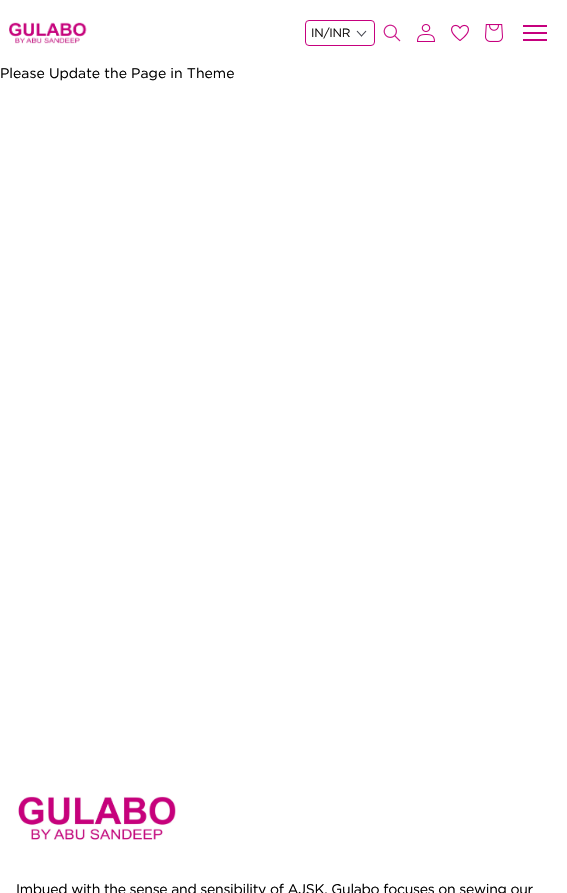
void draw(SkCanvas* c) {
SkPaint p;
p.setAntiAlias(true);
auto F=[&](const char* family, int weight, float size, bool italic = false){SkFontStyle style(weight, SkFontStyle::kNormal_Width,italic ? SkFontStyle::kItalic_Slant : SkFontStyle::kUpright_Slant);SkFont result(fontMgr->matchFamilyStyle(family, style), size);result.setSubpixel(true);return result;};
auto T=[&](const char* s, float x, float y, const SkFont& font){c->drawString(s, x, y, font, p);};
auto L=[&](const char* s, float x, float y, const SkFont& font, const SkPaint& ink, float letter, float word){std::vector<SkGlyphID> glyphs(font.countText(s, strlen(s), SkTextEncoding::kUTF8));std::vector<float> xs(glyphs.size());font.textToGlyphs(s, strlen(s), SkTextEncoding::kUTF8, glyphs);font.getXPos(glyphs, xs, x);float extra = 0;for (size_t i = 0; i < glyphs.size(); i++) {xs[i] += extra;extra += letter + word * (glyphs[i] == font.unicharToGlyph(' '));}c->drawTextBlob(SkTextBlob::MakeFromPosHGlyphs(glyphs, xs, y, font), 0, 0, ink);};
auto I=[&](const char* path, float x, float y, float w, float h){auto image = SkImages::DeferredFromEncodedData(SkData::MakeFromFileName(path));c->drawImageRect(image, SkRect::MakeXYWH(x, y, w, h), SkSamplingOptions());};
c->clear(0xffffffff);
I("1.png",9,22,78,22);
p.setStroke(true);
p.setStrokeWidth(1);
p.setColor(0xffc6007e);
c->drawRoundRect(SkRect::MakeXYWH(305.5,20.5,69,25),3.5,3.5,p);
auto f1 = F("Gotham",400,12);
p.setStroke(false);
p.setColor(0xff110d0d);
L("IN/INR",311,37,f1,p,-.25,0);
I("2.png",356,30,11,7);
I("3.png",383,24,18,18);
I("4.png",417,24,18,18);
I("5.png",451,24,18,17);
I("6.png",485,24,18,18);
I("7.png",523,25,24,16);
auto f2 = F("Gotham",400,14);
p.setColor(0xff000000);
T("Please Update the Page in Theme",0,78,f2);
I("8.png",18,796,158,44);
L("Imbued with the sense and sensibility of AJSK, Gulabo focuses on sewing our",16,894,f2,p,-.28,0);
}
